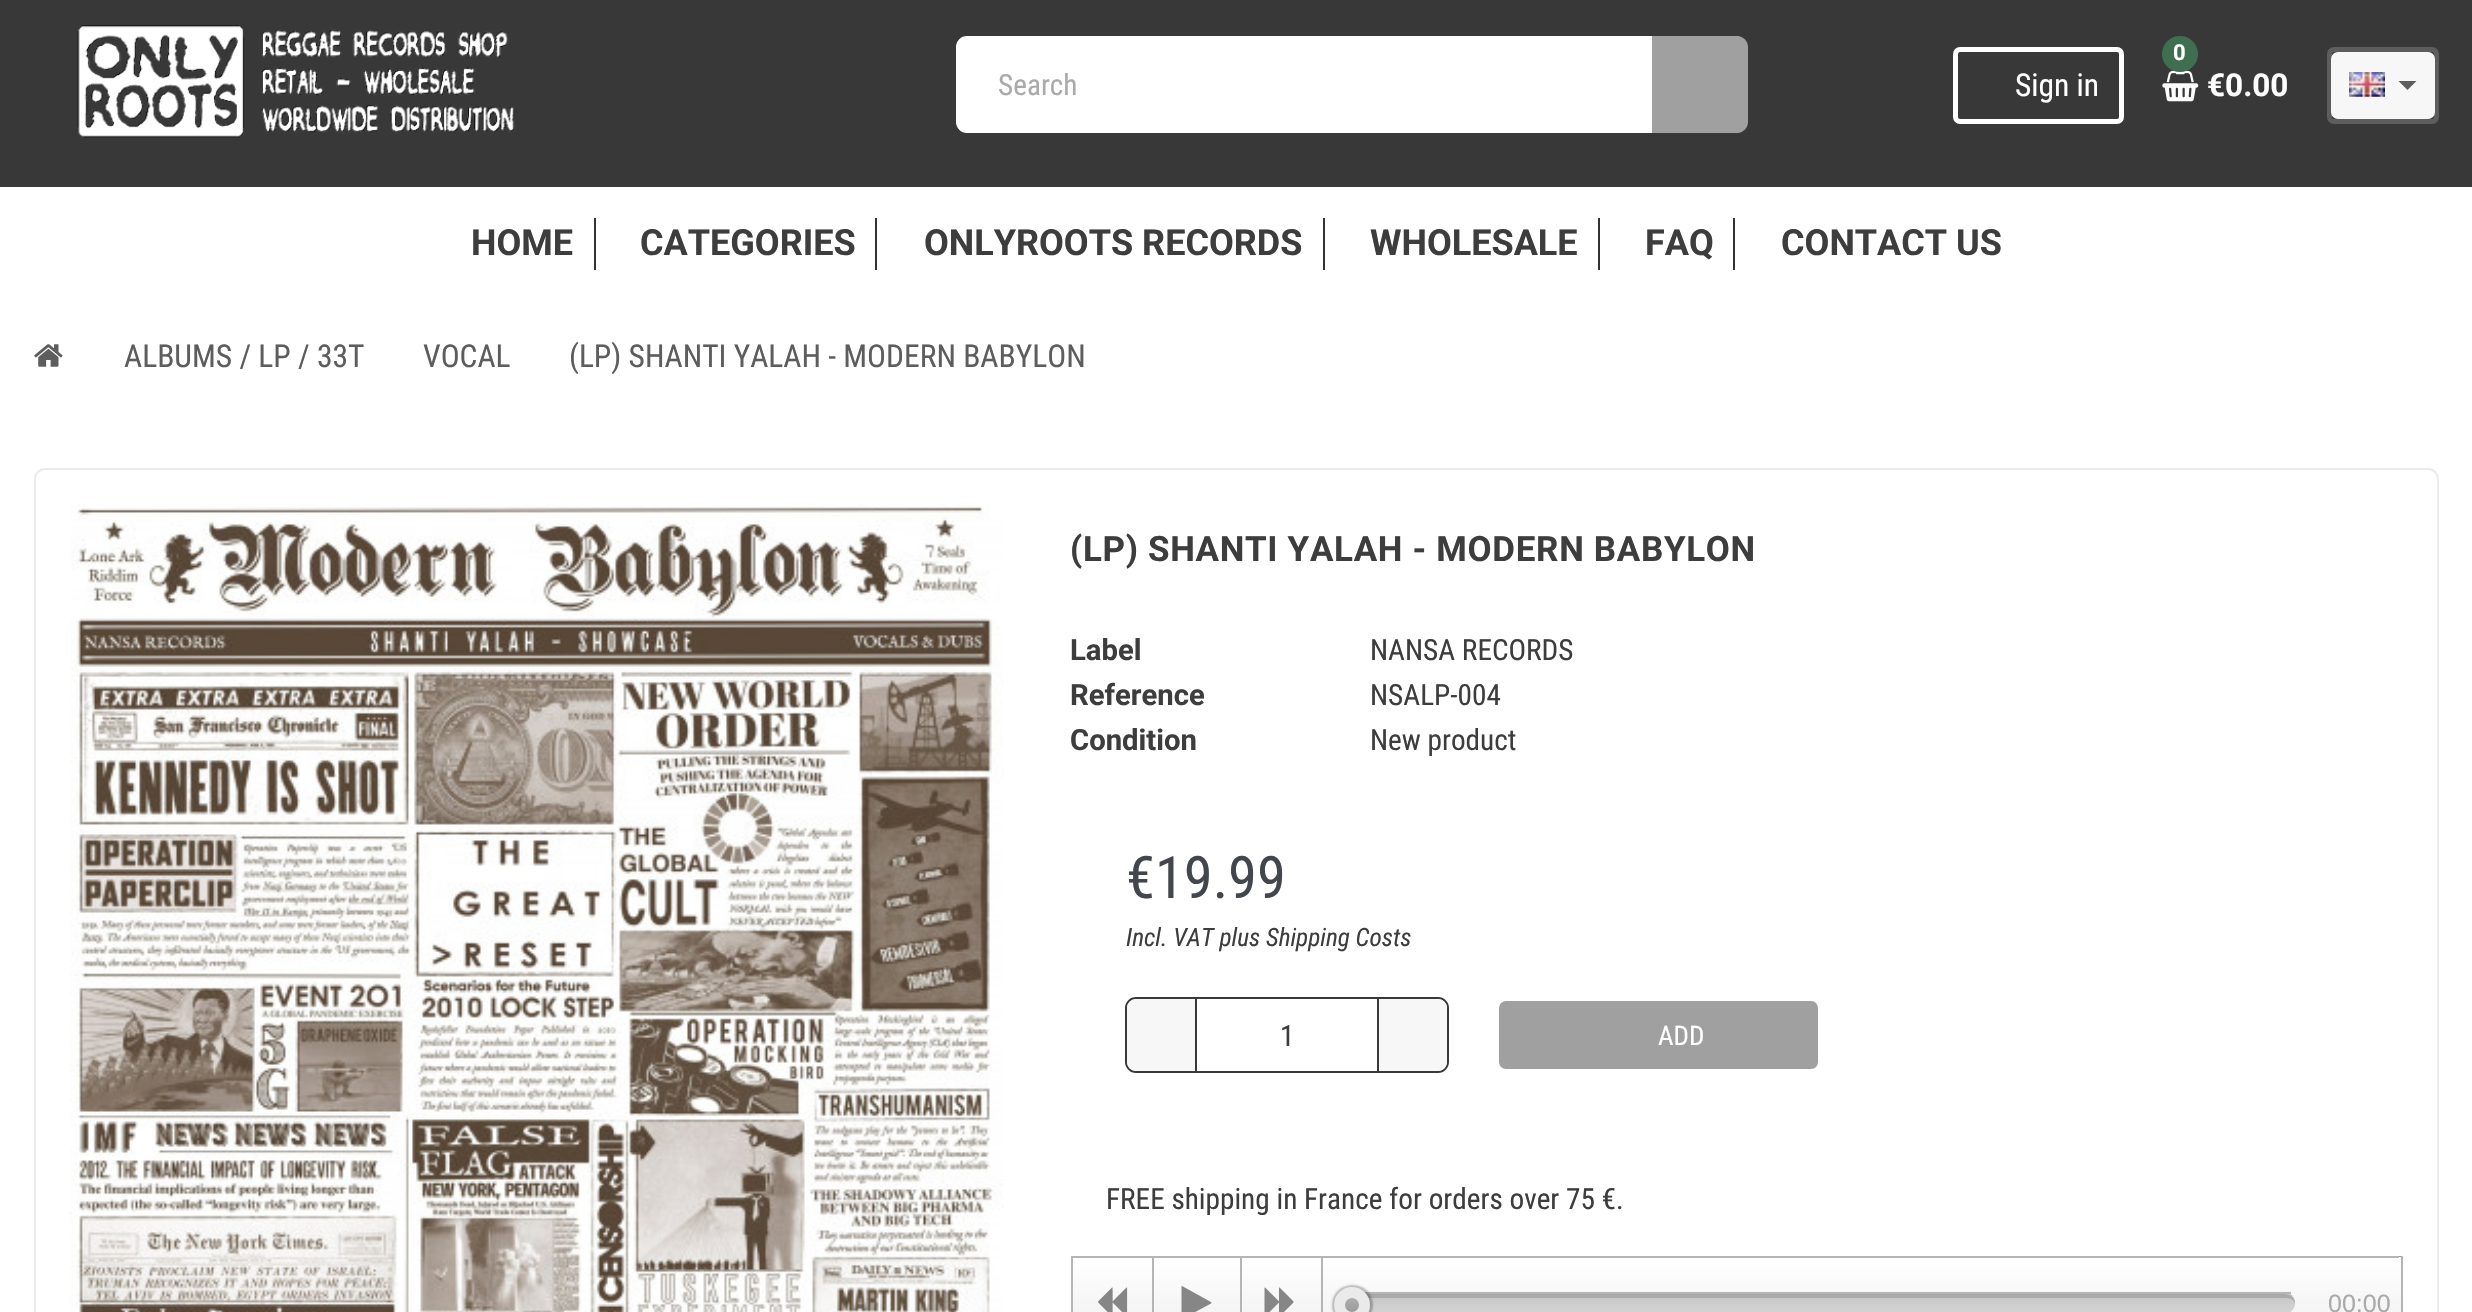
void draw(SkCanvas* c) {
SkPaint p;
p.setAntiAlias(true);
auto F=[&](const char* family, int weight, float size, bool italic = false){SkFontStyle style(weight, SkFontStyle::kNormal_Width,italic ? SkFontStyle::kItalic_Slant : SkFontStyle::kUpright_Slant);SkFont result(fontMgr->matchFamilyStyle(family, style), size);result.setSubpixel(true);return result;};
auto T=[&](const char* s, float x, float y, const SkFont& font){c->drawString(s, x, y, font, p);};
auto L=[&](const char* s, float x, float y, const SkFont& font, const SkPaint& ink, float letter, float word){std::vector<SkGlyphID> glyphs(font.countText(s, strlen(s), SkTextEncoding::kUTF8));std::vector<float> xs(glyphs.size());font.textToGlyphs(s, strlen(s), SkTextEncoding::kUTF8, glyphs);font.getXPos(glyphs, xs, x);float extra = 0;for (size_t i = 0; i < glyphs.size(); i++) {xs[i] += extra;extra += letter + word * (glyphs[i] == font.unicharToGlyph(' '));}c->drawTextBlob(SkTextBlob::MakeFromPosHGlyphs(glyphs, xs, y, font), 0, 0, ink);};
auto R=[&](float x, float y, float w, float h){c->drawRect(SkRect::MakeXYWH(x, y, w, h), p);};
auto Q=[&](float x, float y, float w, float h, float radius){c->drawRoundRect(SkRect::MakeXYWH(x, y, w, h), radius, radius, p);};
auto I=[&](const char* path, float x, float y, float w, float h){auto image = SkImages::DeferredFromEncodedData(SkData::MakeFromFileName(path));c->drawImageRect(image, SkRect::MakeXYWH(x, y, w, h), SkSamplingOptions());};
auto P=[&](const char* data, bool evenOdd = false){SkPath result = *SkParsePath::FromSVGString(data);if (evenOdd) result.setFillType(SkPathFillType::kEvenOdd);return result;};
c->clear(0xffffffff);
p.setColor(0xff383838);
R(0,0,2472,187);
I("1.png",77,25,438,113);
p.setColor(0xffffffff);
c->drawRoundRect(SkRect::MakeXYWH(957,37,788,95),10,10,p);
p.setStroke(true);
p.setStrokeWidth(2);
c->drawRoundRect(SkRect::MakeXYWH(957,37,788,95),10,10,p);
auto f1 = F("Roboto Condensed",400,29.25);
p.setStroke(false);
p.setColor(0xffaaaaaa);
T("Search",998,95,f1);
p.setColor(0xffa0a0a0);
c->drawPath(P("M1652 36h85c6 0 11 5 11 11v75c0 6-5 11-11 11h-85z"),p);
p.setStroke(true);
p.setStrokeWidth(5);
p.setColor(0xffffffff);
c->drawRoundRect(SkRect::MakeXYWH(1955.5,49.5,166,72),4.5,4.5,p);
auto f2 = F("Roboto Condensed",400,31.5);
p.setStroke(false);
T("Sign in",2015,96,f2);
I("2.png",2162,70,37,32);
p.setColor(0xff3f6e51);
c->drawCircle(2180,54,18,p);
auto f3 = F("Roboto",700,22);
p.setColor(0xffffffff);
T("0",2173,60,f3);
auto f4 = F("Roboto",700,31.5);
T("€0.00",2207,96,f4);
p.setStroke(true);
p.setColor(0xff5d5d5d);
c->drawRoundRect(SkRect::MakeXYWH(2329.5,49.5,107,72),4.5,4.5,p);
p.setStroke(false);
p.setColor(0xfff7f7f7);
Q(2331,52,104,67,7);
I("3.png",2349,72,36,25);
p.setColor(0xff5d5d5d);
c->drawPath(P("M2398.5 81h18l-9 9z"),p);
auto f5 = F("Roboto",700,36);
p.setColor(0xff3d3d3d);
T("HOME",471,255,f5);
p.setColor(0xff333333);
R(594,218,2,52);
p.setColor(0xff3d3d3d);
T("CATEGORIES",640,255,f5);
p.setColor(0xff333333);
R(875,218,2,52);
p.setColor(0xff3d3d3d);
T("ONLYROOTS RECORDS",924,255,f5);
p.setColor(0xff333333);
R(1323,218,2,52);
p.setColor(0xff3d3d3d);
T("WHOLESALE",1370,255,f5);
p.setColor(0xff333333);
R(1598,218,2,52);
p.setColor(0xff3d3d3d);
T("FAQ",1645,255,f5);
p.setColor(0xff333333);
R(1733,218,2,52);
p.setColor(0xff3d3d3d);
T("CONTACT US",1781,255,f5);
I("4.png",34,344,29,23);
p.setColor(0xff5d5d5d);
T("ALBUMS / LP / 33T",124,367,f2);
T("VOCAL",423,367,f2);
T("(LP) SHANTI YALAH - MODERN BABYLON",569,367,f2);
p.setStroke(true);
p.setStrokeWidth(2);
p.setColor(0xffebebeb);
c->drawRoundRect(SkRect::MakeXYWH(35,469,2403,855),10,10,p);
I("5.png",70,504,934,808);
auto f6 = F("Roboto",700,34.9);
p.setStroke(false);
p.setColor(0xff3d3d3d);
L("(LP) SHANTI YALAH - MODERN BABYLON",1070,561,f6,p,.7,0);
auto f7 = F("Roboto",700,29.25);
T("Label",1070,660,f7);
T("NANSA RECORDS",1370,660,f1);
T("Reference",1070,705,f7);
T("NSALP-004",1370,705,f1);
T("Condition",1070,750,f7);
T("New product",1370,750,f1);
auto f8 = F("Roboto Condensed",400,58.5);
p.setColor(0xff43474d);
T("€19.99",1126,898,f8);
auto f9 = F("Roboto Condensed",400,25.25,true);
p.setColor(0xff3d3d3d);
T("Incl. VAT plus Shipping Costs",1126,946,f9);
p.setStroke(true);
p.setColor(0xff393939);
c->drawRoundRect(SkRect::MakeXYWH(1126,998,322,74),10,10,p);
p.setStroke(false);
p.setColor(0xfff7f7f7);
c->drawPath(P("M1136 999h59v72h-59c-5 0-9-4-9-9v-54c0-5 4-9 9-9z"),p);
p.setColor(0xff393939);
R(1377,999,2,72);
R(1195,999,2,72);
p.setColor(0xff3d3d3d);
T("1",1280,1046,f1);
p.setColor(0xfff7f7f7);
c->drawPath(P("M1379 999h59c5 0 9 4 9 9v54c0 5-4 9-9 9h-59z"),p);
p.setColor(0xffa0a0a0);
Q(1499,1001,319,68,7);
auto f10 = F("Roboto Condensed",400,27);
p.setColor(0xffffffff);
T("ADD",1658,1045,f10);
p.setColor(0xff3d3d3d);
T("FREE shipping in France for orders over 75 €.",1106,1209,f1);
{
const SkColor colors[] = {0xff141414,0xffffffff,0xffeeeeee};
const float stops[] = {0,.01,1};
const SkPoint ends[] = {{1736,1256}, {1736,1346}};
p.setShader(SkGradientShader::MakeLinear(ends, colors, stops, 3, SkTileMode::kClamp));
p.setAlpha(255);
}
R(1073,1256,1328,56);
p.setShader(nullptr);
p.setColor(0xffb5b5b5);
R(2401,1256,2,56);
R(1071,1256,1328,2);
R(1071,1256,2,56);
R(1152,1258,2,54);
I("6.png",1098,1287,30,25);
R(1240,1256,2,56);
p.setColor(0xff868686);
c->drawPath(P("M1211 1303.5l-24 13c-.5 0-4.5 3.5-5.5 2.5v-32.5l.5-.5l29 16l.5 .5z"),p);
p.setColor(0xffb5b5b5);
R(1321,1258,2,54);
I("7.png",1264,1287,30,25);
p.setColor(0xffd5d5d5);
Q(1352,1292,943,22,11);
c->save();
c->clipPath(P("M1363 1292h921c6 0 11 5 11 11c0 6-5 11-11 11h-921c-6 0-11-5-11-11c0-6 5-11 11-11z"),true);
{
const SkColor colors[] = {0xffd5d5d5,0xffc6c6c6};
const float stops[] = {0,1};
const SkPoint ends[] = {{1824,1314}, {1824,1294}};
p.setShader(SkGradientShader::MakeLinear(ends, colors, stops, 2, SkTileMode::kClamp));
p.setAlpha(255);
}
c->drawPath(P("M1352 1294h943v9c0 6-5 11-11 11h-921c-6 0-11-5-11-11z"),p);
c->restore();
p.setShader(nullptr);
p.setColor(0x26000000);
c->drawPath(P("M1366 1298h920c6 0 8 3 9 6c0-2 0-4-2-6c-2-3-6-4-9-4h-920c-16 0-16 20 2 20c-11 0-13-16 0-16z"),p);
p.setColor(0xffb5b5b5);
R(1359,1292,932,2);
p.setColor(0x40000000);
p.setMaskFilter(SkMaskFilter::MakeBlur(kNormal_SkBlurStyle, 1));
c->drawRoundRect(SkRect::MakeXYWH(1332,1285,41,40),20,20,p);
p.setMaskFilter(nullptr);
c->save();
c->clipPath(P("M1352 1287c10 0 18 8 18 18c0 10-8 18-18 18c-10 0-18-8-18-18c0-10 8-18 18-18z"),true);
{
const SkColor colors[] = {0xff9c9c9c,0xffadadad};
const float stops[] = {0,1};
const SkPoint ends[] = {{1352,1312}, {1352,1298}};
p.setShader(SkGradientShader::MakeLinear(ends, colors, stops, 2, SkTileMode::kClamp));
p.setAlpha(255);
}
R(1334,1298,36,14);
c->restore();
p.setStroke(true);
p.setStrokeWidth(11);
p.setShader(nullptr);
p.setColor(0xffeaeaea);
c->drawCircle(1352,1305,12.5,p);
auto f11 = F("Liberation Sans",400,25);
p.setStroke(false);
p.setColor(0xffaaaaaa);
T("00:00",2328,1312,f11);
}
